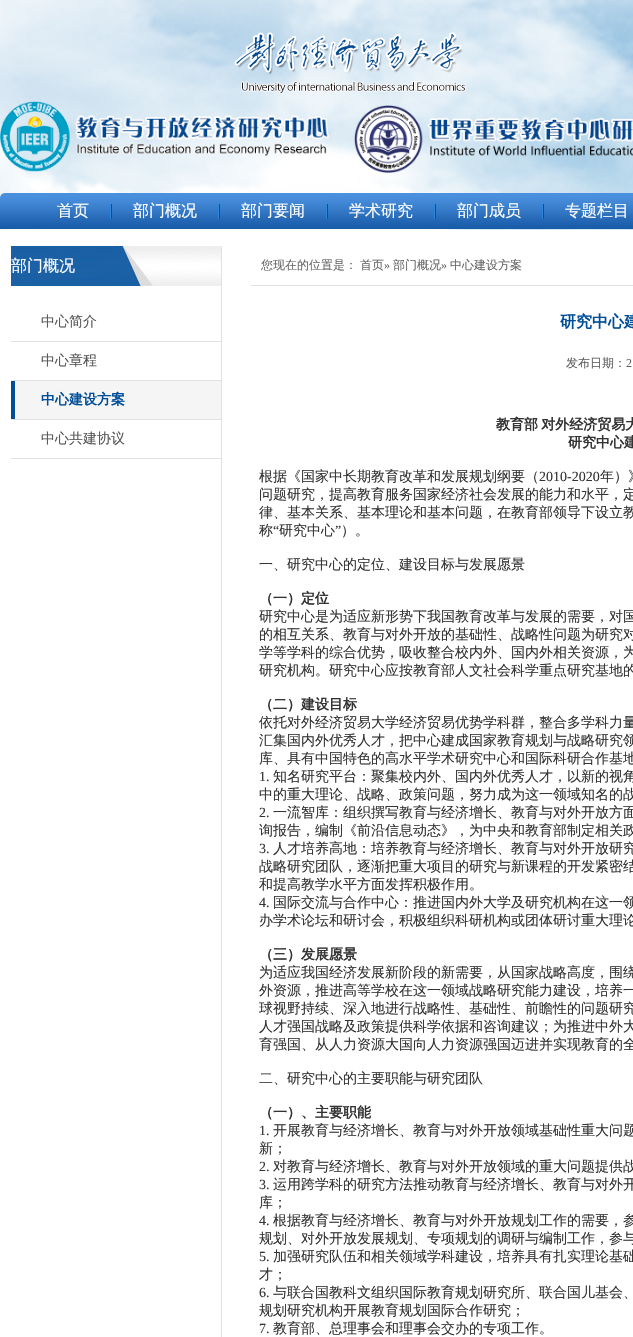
void draw(SkCanvas* c) {
SkPaint p;
p.setAntiAlias(true);
auto F=[&](const char* family, int weight, float size, bool italic = false){SkFontStyle style(weight, SkFontStyle::kNormal_Width,italic ? SkFontStyle::kItalic_Slant : SkFontStyle::kUpright_Slant);SkFont result(fontMgr->matchFamilyStyle(family, style), size);result.setSubpixel(true);return result;};
auto T=[&](const char* s, float x, float y, const SkFont& font){c->drawString(s, x, y, font, p);};
auto L=[&](const char* s, float x, float y, const SkFont& font, const SkPaint& ink, float letter, float word){std::vector<SkGlyphID> glyphs(font.countText(s, strlen(s), SkTextEncoding::kUTF8));std::vector<float> xs(glyphs.size());font.textToGlyphs(s, strlen(s), SkTextEncoding::kUTF8, glyphs);font.getXPos(glyphs, xs, x);float extra = 0;for (size_t i = 0; i < glyphs.size(); i++) {xs[i] += extra;extra += letter + word * (glyphs[i] == font.unicharToGlyph(' '));}c->drawTextBlob(SkTextBlob::MakeFromPosHGlyphs(glyphs, xs, y, font), 0, 0, ink);};
auto R=[&](float x, float y, float w, float h){c->drawRect(SkRect::MakeXYWH(x, y, w, h), p);};
auto I=[&](const char* path, float x, float y, float w, float h){auto image = SkImages::DeferredFromEncodedData(SkData::MakeFromFileName(path));c->drawImageRect(image, SkRect::MakeXYWH(x, y, w, h), SkSamplingOptions());};
c->clear(0xffffffff);
I("1.png",0,0,633,230);
I("2.png",234,32,232,62);
I("3.png",0,101,329,71);
I("4.png",354,105,279,68);
I("5.png",0,193,633,36);
I("6.png",110,204,2,15);
auto f1 = F("WenQuanYi Zen Hei",500,16);
p.setColor(0xffffffff);
T("首页",57,216,f1);
I("6.png",218,204,2,15);
T("部门概况",133,216,f1);
I("6.png",326,204,2,15);
T("部门要闻",241,216,f1);
I("6.png",434,204,2,15);
T("学术研究",349,216,f1);
I("6.png",542,204,2,15);
T("部门成员",457,216,f1);
T("专题栏目",565,216,f1);
p.setColor(0xffe1e1e1);
R(221,246,1,1091);
I("7.png",11,246,210,40);
p.setColor(0xffffffff);
T("部门概况",11,271,f1);
p.setColor(0xffe1e1e1);
R(11,341,210,1);
auto f2 = F("WenQuanYi Zen Hei",500,14);
p.setColor(0xff555555);
T("中心简介",41,326,f2);
p.setColor(0xffe1e1e1);
R(11,380,210,1);
p.setColor(0xff555555);
T("中心章程",41,365,f2);
p.setColor(0xffe1e1e1);
R(11,419,210,1);
p.setColor(0xfff5f5f5);
R(15,381,206,38);
p.setColor(0xff004e98);
R(11,381,4,38);
auto f3 = F("WenQuanYi Zen Hei",700,14);
T("中心建设方案",41,404,f3);
p.setColor(0xffe1e1e1);
R(11,458,210,1);
p.setColor(0xff555555);
T("中心共建协议",41,443,f2);
p.setColor(0xffe1e1e1);
R(251,285,382,1);
auto f4 = F("WenQuanYi Zen Hei",500,12);
p.setColor(0xff666666);
T("您现在的位置是：",261,269,f4);
T("首页",360,269,f4);
auto f5 = F("Liberation Serif",400,12);
T("»",384,269,f5);
T("部门概况",393,269,f4);
T("»",441,269,f5);
T("中心建设方案",450,269,f4);
auto f6 = F("WenQuanYi Zen Hei",700,16);
p.setColor(0xff004e98);
T("研究中心建",560,327,f6);
p.setColor(0xff616060);
T("发布日期：",566,367,f4);
T("2",626,367,f5);
p.setColor(0xff333333);
L("教育部 对外经济贸易大",496,429,f3,p,0,-1);
T("研究中心建",568,447,f3);
T("根据《国家中长期教育改革和发展规划纲要（",259,481,f2);
auto f7 = F("Liberation Serif",400,14);
T("2010-2020",539,481,f7);
T("年）》",600,481,f2);
T("问题研究，提高教育服务国家经济社会发展的能力和水平，定",259,499,f2);
T("律、基本关系、基本理论和基本问题，在教育部领导下设立教",259,517,f2);
T("称",259,535,f2);
T("“",273,535,f7);
T("研究中心",279,535,f2);
T("”",335,535,f7);
T("）。",341,535,f2);
T("一、研究中心的定位、建设目标与发展愿景",259,569,f2);
T("（一）定位",259,603,f3);
T("研究中心是为适应新形势下我国教育改革与发展的需要，对国",259,621,f2);
T("的相互关系、教育与对外开放的基础性、战略性问题为研究对",259,639,f2);
T("学等学科的综合优势，吸收整合校内外、国内外相关资源，为",259,657,f2);
T("研究机构。研究中心应按教育部人文社会科学重点研究基地的",259,675,f2);
T("（二）建设目标",259,709,f3);
T("依托对外经济贸易大学经济贸易优势学科群，整合多学科力量",259,727,f2);
T("汇集国内外优秀人才，把中心建成国家教育规划与战略研究领",259,745,f2);
T("库、具有中国特色的高水平学术研究中心和国际科研合作基地",259,763,f2);
T("1.",259,781,f7);
T("知名研究平台：聚集校内外、国内外优秀人才，以新的视角",273,781,f2);
T("中的重大理论、战略、政策问题，努力成为这一领域知名的战",259,799,f2);
T("2.",259,817,f7);
T("一流智库：组织撰写教育与经济增长、教育与对外开放方面",273,817,f2);
T("询报告，编制《前沿信息动态》，为中央和教育部制定相关政",259,835,f2);
T("3.",259,853,f7);
T("人才培养高地：培养教育与经济增长、教育与对外开放研究",273,853,f2);
T("战略研究团队，逐渐把重大项目的研究与新课程的开发紧密结",259,871,f2);
T("和提高教学水平方面发挥积极作用。",259,889,f2);
T("4.",259,907,f7);
T("国际交流与合作中心：推进国内外大学及研究机构在这一领",273,907,f2);
T("办学术论坛和研讨会，积极组织科研机构或团体研讨重大理论",259,925,f2);
T("（三）发展愿景",259,959,f3);
T("为适应我国经济发展新阶段的新需要，从国家战略高度，围绕",259,977,f2);
T("外资源，推进高等学校在这一领域战略研究能力建设，培养一",259,995,f2);
T("球视野持续、深入地进行战略性、基础性、前瞻性的问题研究",259,1013,f2);
T("人才强国战略及政策提供科学依据和咨询建议；为推进中外大",259,1031,f2);
T("育强国、从人力资源大国向人力资源强国迈进并实现教育的全",259,1049,f2);
T("二、研究中心的主要职能与研究团队",259,1083,f2);
T("（一）、主要职能",259,1117,f3);
T("1.",259,1135,f7);
T("开展教育与经济增长、教育与对外开放领域基础性重大问题",273,1135,f2);
T("新；",259,1153,f2);
T("2.",259,1171,f7);
T("对教育与经济增长、教育与对外开放领域的重大问题提供战",273,1171,f2);
T("3.",259,1189,f7);
T("运用跨学科的研究方法推动教育与经济增长、教育与对外开",273,1189,f2);
T("库；",259,1207,f2);
T("4.",259,1225,f7);
T("根据教育与经济增长、教育与对外开放规划工作的需要，参",273,1225,f2);
T("规划、对外开放发展规划、专项规划的调研与编制工作，参与",259,1243,f2);
T("5.",259,1261,f7);
T("加强研究队伍和相关领域学科建设，培养具有扎实理论基础",273,1261,f2);
T("才；",259,1279,f2);
T("6.",259,1297,f7);
T("与联合国教科文组织国际教育规划研究所、联合国儿基会、",273,1297,f2);
T("规划研究机构开展教育规划国际合作研究；",259,1315,f2);
T("7.",259,1333,f7);
T("教育部、总理事会和理事会交办的专项工作。",273,1333,f2);
}
